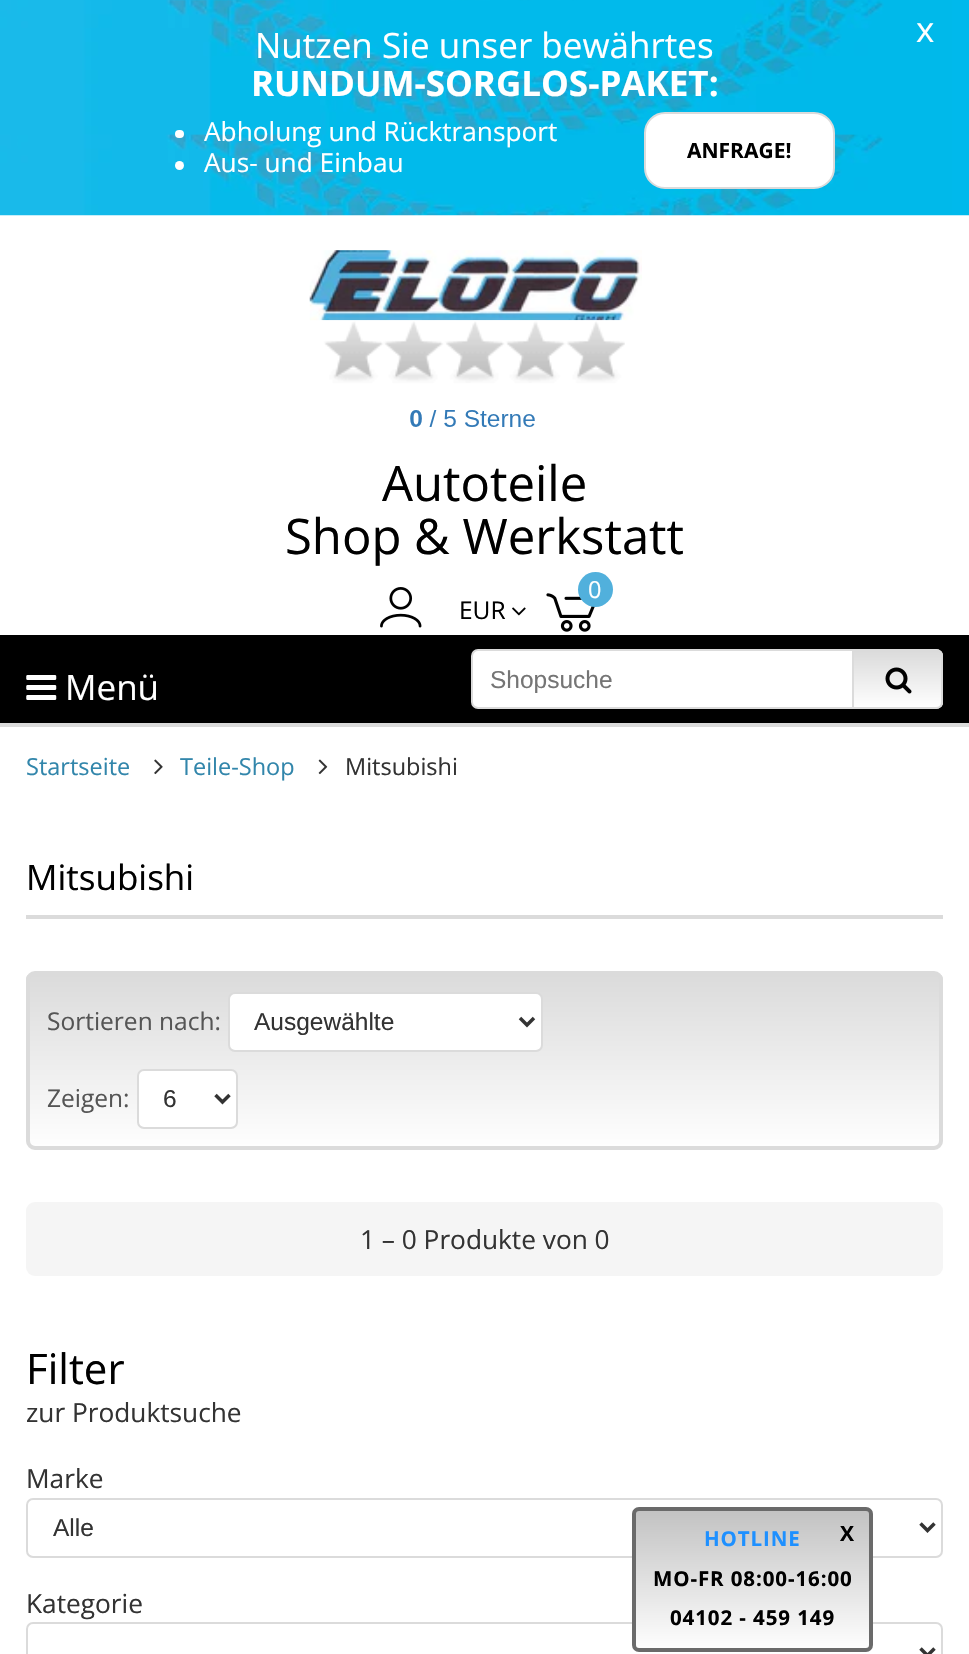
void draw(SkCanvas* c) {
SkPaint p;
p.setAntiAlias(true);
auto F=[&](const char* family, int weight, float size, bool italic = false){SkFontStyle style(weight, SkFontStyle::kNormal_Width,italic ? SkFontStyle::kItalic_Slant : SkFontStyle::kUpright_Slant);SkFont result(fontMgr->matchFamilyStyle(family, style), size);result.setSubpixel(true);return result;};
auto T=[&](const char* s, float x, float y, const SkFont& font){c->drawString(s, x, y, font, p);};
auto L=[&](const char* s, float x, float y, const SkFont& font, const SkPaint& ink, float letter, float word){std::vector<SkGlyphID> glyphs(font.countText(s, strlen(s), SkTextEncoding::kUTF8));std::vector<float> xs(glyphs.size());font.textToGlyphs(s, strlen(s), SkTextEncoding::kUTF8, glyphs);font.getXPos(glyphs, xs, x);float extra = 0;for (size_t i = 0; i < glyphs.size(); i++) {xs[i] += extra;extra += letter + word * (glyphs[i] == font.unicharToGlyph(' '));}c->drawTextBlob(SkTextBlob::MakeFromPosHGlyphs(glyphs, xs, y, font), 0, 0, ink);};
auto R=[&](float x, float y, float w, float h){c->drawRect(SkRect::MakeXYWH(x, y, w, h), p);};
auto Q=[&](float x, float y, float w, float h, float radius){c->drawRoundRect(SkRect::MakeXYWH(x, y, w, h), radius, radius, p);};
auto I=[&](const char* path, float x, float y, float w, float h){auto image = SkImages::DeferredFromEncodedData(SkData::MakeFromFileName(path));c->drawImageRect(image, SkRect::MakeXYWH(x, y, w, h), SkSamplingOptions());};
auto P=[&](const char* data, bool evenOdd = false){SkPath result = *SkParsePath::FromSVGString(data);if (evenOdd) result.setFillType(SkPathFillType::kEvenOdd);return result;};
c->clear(0xffffffff);
p.setColor(0xffdbdbdb);
R(0,723,969,4);
I("1.png",0,0,969,216);
auto f1 = F("Open Sans",400,35);
p.setColor(0xffffffff);
T("Nutzen Sie unser bewährtes",255,58,f1);
auto f2 = F("Open Sans",700,35);
T("RUNDUM-SORGLOS-PAKET:",251,96,f2);
T("x",916,42,f1);
Q(175,130,9,8,4);
auto f3 = F("Open Sans",400,26.25);
T("Abholung und Rücktransport",204,141,f3);
c->drawCircle(179.5,165.5,4.5,p);
T("Aus- und Einbau",204,172,f3);
c->drawRoundRect(SkRect::MakeXYWH(645,113,189,75),20,20,p);
p.setStroke(true);
p.setStrokeWidth(2);
p.setColor(0xffdbdbdb);
c->drawRoundRect(SkRect::MakeXYWH(645,113,189,75),20,20,p);
auto f4 = F("Open Sans",700,21);
p.setStroke(false);
p.setColor(0xff000000);
T("ANFRAGE!",687,158,f4);
I("2.png",309,250,333,71);
I("3.png",320,320,305,107);
auto f5 = F("Open Sans",400,49);
T("Autoteile",382,501,f5);
T("Shop & Werkstatt",285,554,f5);
I("4.png",380,587,42,41);
auto f6 = F("Open Sans",400,24.5);
T("EUR",459,619,f6);
I("5.png",512,607,14,9);
I("6.png",546,593,49,39);
p.setColor(0xff51b0dc);
c->drawCircle(595.5,589.5,17.5,p);
auto f7 = F("Open Sans",400,23.5);
p.setColor(0xffffffff);
T("0",588,598,f7);
p.setColor(0xff000000);
R(0,635,969,88);
I("7.png",26,675,31,25);
p.setColor(0xffffffff);
T("Menü",65,700,f1);
c->drawRoundRect(SkRect::MakeXYWH(472,650,470,58),6,6,p);
p.setStroke(true);
p.setColor(0xffdbdbdb);
c->drawRoundRect(SkRect::MakeXYWH(472,650,470,58),6,6,p);
auto f8 = F("Liberation Sans",400,24.5);
p.setStroke(false);
p.setColor(0xff757575);
T("Shopsuche",490,688,f8);
c->save();
c->clipPath(P("M852 649h84c4 0 7 3 7 7v46c0 4-3 7-7 7h-84z"),true);
{
const SkColor colors[] = {0xffdbdbdb,0xfffefefe};
const float stops[] = {0,1};
const SkPoint ends[] = {{898,651}, {898,707}};
p.setShader(SkGradientShader::MakeLinear(ends, colors, stops, 2, SkTileMode::kClamp));
p.setAlpha(255);
}
R(854,651,89,56);
c->restore();
p.setStroke(true);
p.setShader(nullptr);
p.setColor(0xffdbdbdb);
c->drawPath(P("M853 650h83c3.5 0 6 2.5 6 6v46c0 3.5-2.5 6-6 6h-83z"),p);
I("8.png",885,667,27,27);
p.setStroke(false);
p.setColor(0xff3286ab);
T("Startseite",26,775,f7);
I("9.png",154,759,9,16);
T("Teile-Shop",180,775,f7);
I("10.png",318,759,10,16);
p.setColor(0xff333333);
T("Mitsubishi",345,775,f7);
p.setColor(0xffdbdbdb);
R(26,915,917,4);
p.setColor(0xff000000);
T("Mitsubishi",26,890,f1);
c->save();
c->clipPath(P("M35 971h899c5 0 9 4 9 9v161c0 5-4 9-9 9h-899c-5 0-9-4-9-9v-161c0-5 4-9 9-9z"),true);
{
const SkColor colors[] = {0xffdbdbdb,0xfffefefe};
const float stops[] = {0,1};
const SkPoint ends[] = {{485,975}, {485,1146}};
p.setShader(SkGradientShader::MakeLinear(ends, colors, stops, 2, SkTileMode::kClamp));
p.setAlpha(255);
}
R(26,975,917,171);
c->restore();
p.setStroke(true);
p.setStrokeWidth(4);
p.setShader(nullptr);
p.setColor(0xffdbdbdb);
c->drawRoundRect(SkRect::MakeXYWH(28,973,913,175),7,7,p);
p.setStroke(false);
p.setColor(0xff555555);
T("Sortieren nach:",47,1030,f6);
p.setColor(0xffffffff);
c->drawRoundRect(SkRect::MakeXYWH(229,993,313,58),6,6,p);
p.setStroke(true);
p.setStrokeWidth(2);
p.setColor(0xffdbdbdb);
c->drawRoundRect(SkRect::MakeXYWH(229,993,313,58),6,6,p);
p.setStrokeWidth(3.5);
p.setColor(0xff333333);
c->drawPath(P("M520 1018l7 7l7-7"),p);
p.setStroke(false);
T("Ausgewählte",254,1030,f8);
p.setColor(0xff555555);
T("Zeigen:",47,1107,f6);
p.setColor(0xffffffff);
c->drawRoundRect(SkRect::MakeXYWH(138,1070,99,58),6,6,p);
p.setStroke(true);
p.setStrokeWidth(2);
p.setColor(0xffdbdbdb);
c->drawRoundRect(SkRect::MakeXYWH(138,1070,99,58),6,6,p);
p.setStrokeWidth(3.5);
p.setColor(0xff333333);
c->drawPath(P("M215.5 1095l7 7l7-7"),p);
p.setStroke(false);
T("6",163,1107,f8);
p.setColor(0xfff5f5f5);
Q(26,1202,917,74,9);
p.setColor(0xff333333);
T("1 – 0 Produkte von 0",360,1249,f3);
auto f9 = F("Open Sans",400,42);
p.setColor(0xff000000);
T("Filter",26,1384,f9);
p.setColor(0xff333333);
T("zur Produktsuche",26,1422,f3);
T("Marke",26,1488,f3);
p.setStroke(true);
p.setStrokeWidth(2);
p.setColor(0xffdbdbdb);
c->drawRoundRect(SkRect::MakeXYWH(27,1499,915,58),6,6,p);
p.setStrokeWidth(3.5);
p.setColor(0xff333333);
c->drawPath(P("M920.5 1523.5l7 7l7-7"),p);
p.setStroke(false);
T("Alle",53,1536,f8);
T("Kategorie",26,1613,f3);
p.setStroke(true);
p.setStrokeWidth(2);
p.setColor(0xffdbdbdb);
c->drawRoundRect(SkRect::MakeXYWH(27,1623,915,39),6,6,p);
p.setStrokeWidth(3.5);
p.setColor(0xff333333);
c->drawPath(P("M920.5 1648.5l7 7l7-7"),p);
c->save();
c->clipPath(P("M639 1507h227c4 0 7 3 7 7v131c0 4-3 7-7 7h-227c-4 0-7-3-7-7v-131c0-4 3-7 7-7z"),true);
p.setStroke(false);
{
const SkColor colors[] = {0xffc2c2c2,0xfffefefe};
const float stops[] = {0,1};
const SkPoint ends[] = {{753,1510}, {753,1649}};
p.setShader(SkGradientShader::MakeLinear(ends, colors, stops, 2, SkTileMode::kClamp));
p.setAlpha(255);
}
R(632,1510,241,139);
c->restore();
p.setStroke(true);
p.setStrokeWidth(4);
p.setShader(nullptr);
p.setColor(0xff6a6a6a);
c->drawRoundRect(SkRect::MakeXYWH(634,1509,237,141),5,5,p);
auto f10 = F("Open Sans",700,20.5);
p.setStroke(false);
p.setColor(0xff1e90ff);
L("HOTLINE",704,1546,f10,p,.9,0);
p.setColor(0xff000000);
L("X",840,1541,f4,p,.9,0);
L("MO-FR 08:00-16:00",653,1586,f10,p,.9,0);
L("04102 - 459 149",670,1625,f10,p,.9,0);
}
